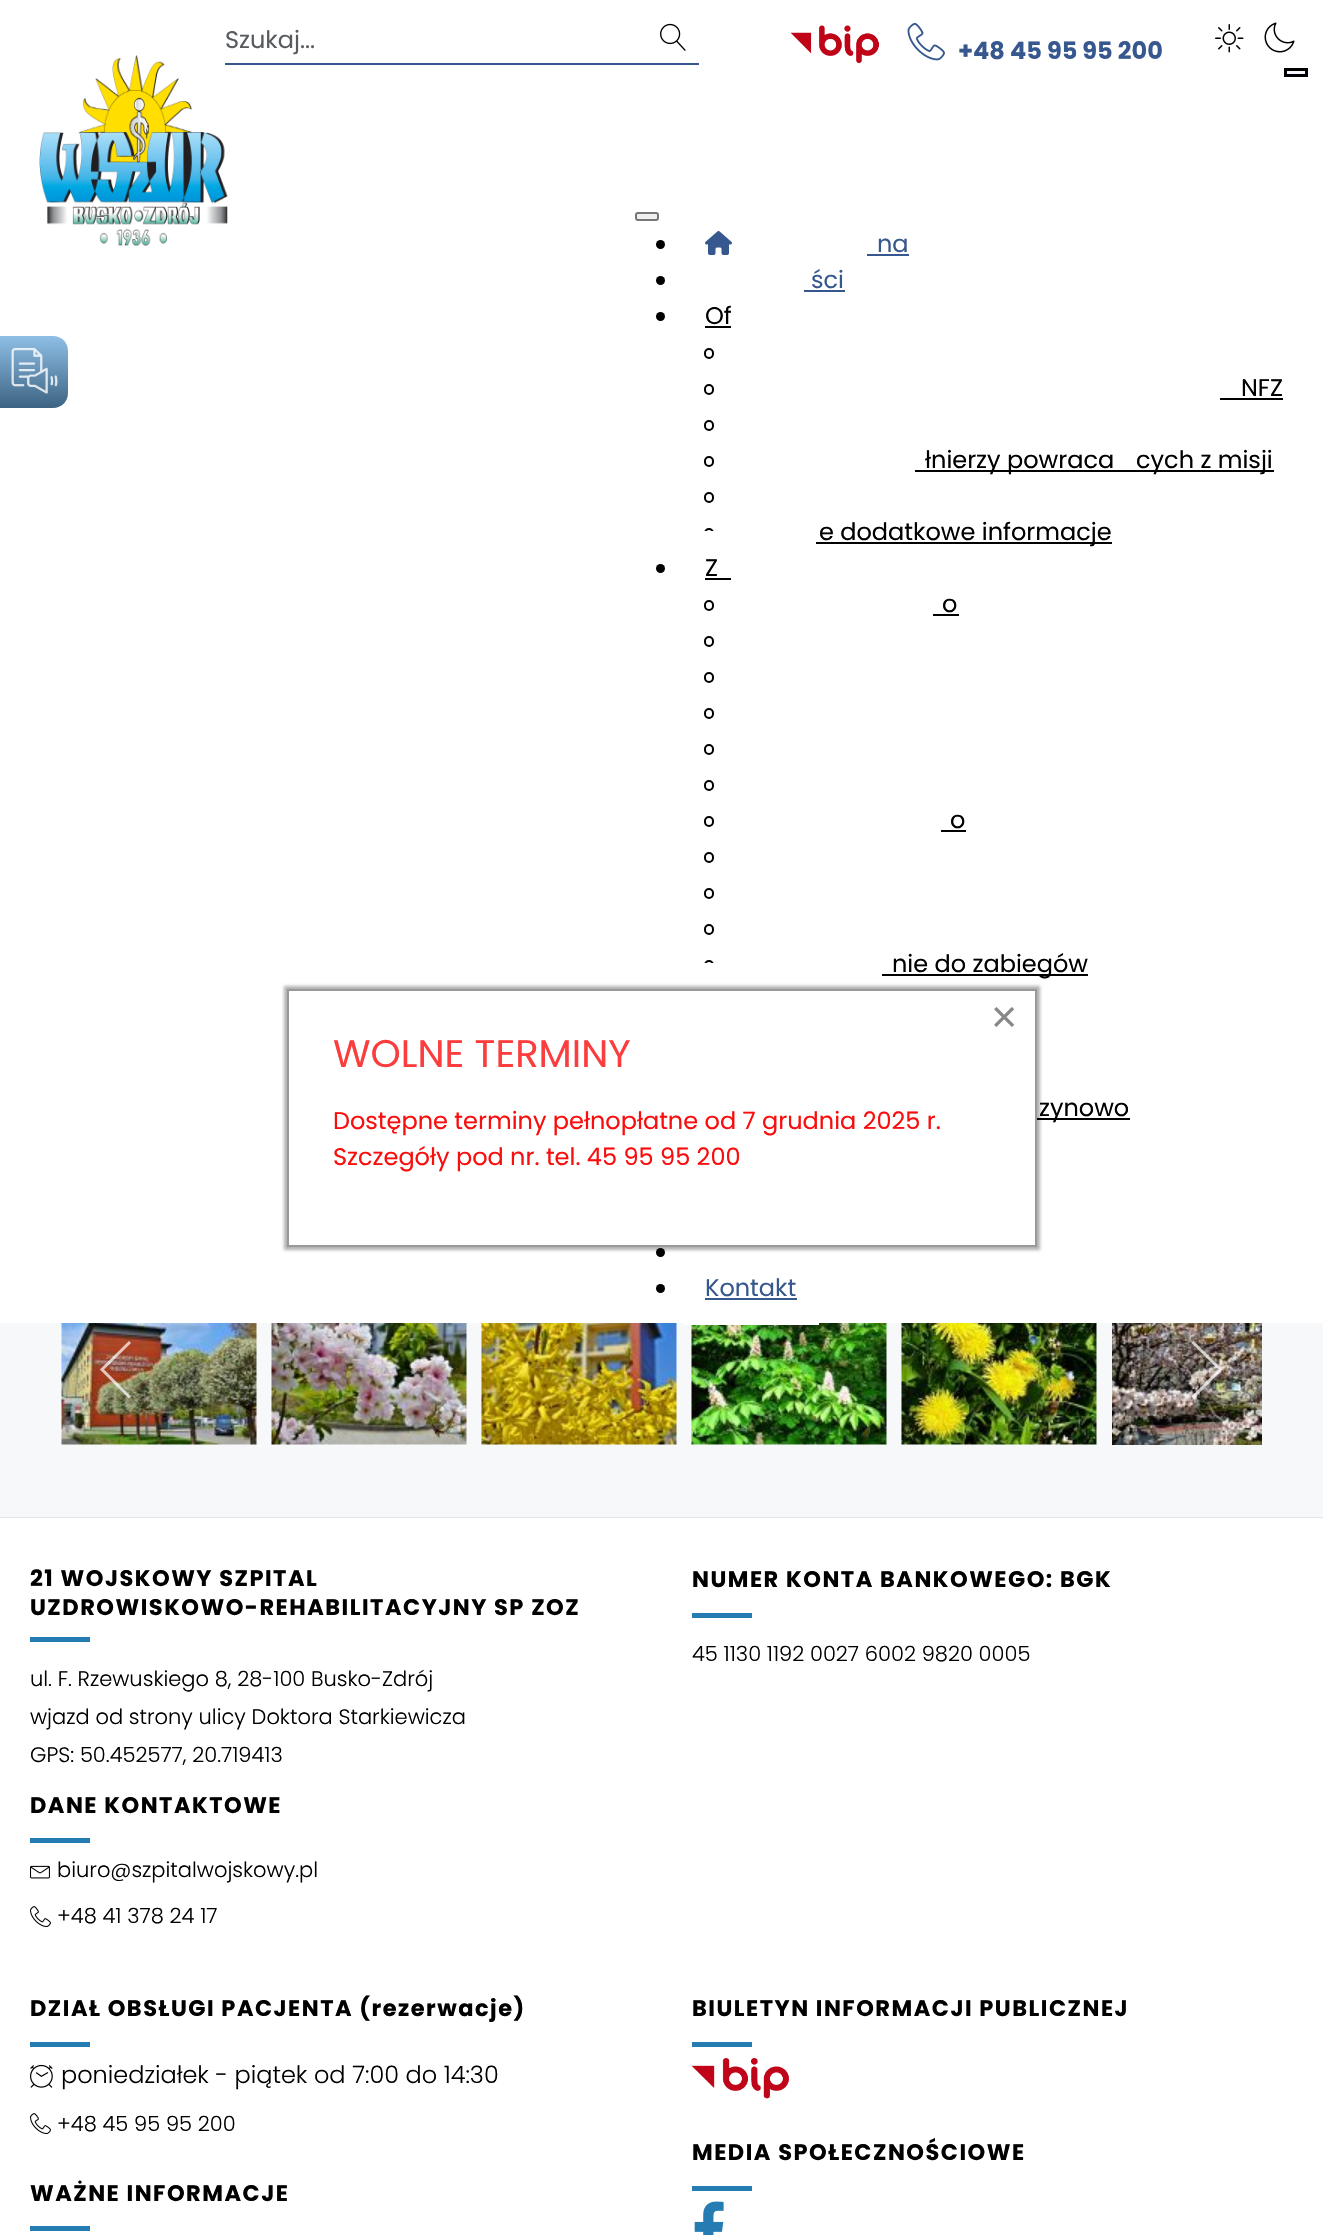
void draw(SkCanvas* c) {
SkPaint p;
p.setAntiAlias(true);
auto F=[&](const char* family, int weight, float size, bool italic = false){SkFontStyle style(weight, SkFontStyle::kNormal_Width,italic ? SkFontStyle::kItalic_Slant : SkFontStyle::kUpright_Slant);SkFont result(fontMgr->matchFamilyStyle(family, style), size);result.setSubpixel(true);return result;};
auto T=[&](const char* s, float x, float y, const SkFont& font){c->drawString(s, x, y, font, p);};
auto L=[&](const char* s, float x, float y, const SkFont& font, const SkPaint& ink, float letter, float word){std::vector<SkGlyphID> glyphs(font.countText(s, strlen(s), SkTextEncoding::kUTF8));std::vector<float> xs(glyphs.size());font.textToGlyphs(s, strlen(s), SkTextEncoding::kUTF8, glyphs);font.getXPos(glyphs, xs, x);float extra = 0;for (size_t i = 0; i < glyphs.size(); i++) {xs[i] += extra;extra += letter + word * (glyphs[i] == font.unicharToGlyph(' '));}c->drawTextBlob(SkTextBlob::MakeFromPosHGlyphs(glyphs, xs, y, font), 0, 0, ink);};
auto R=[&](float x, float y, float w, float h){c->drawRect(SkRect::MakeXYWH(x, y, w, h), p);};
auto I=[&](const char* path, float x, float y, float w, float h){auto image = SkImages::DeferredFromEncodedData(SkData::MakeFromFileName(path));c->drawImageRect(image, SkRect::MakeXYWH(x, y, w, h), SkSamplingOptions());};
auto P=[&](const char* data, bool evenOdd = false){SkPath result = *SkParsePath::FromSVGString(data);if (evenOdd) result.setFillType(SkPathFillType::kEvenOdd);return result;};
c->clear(0xfff7f8fa);
p.setColor(0xffffffff);
R(0,0,1323,1323);
{
const SkColor colors[] = {0xff8fbfe6,0xff3c6382};
const float stops[] = {0,1};
const SkPoint ends[] = {{34,336}, {34,408}};
p.setShader(SkGradientShader::MakeLinear(ends, colors, stops, 2, SkTileMode::kClamp));
p.setAlpha(255);
}
c->drawPath(P("M0 336h53c8.5 0 15 6.5 15 15v42c0 8.5-6.5 15-15 15h-53z"),p);
I("1.png",11,347,47,47);
p.setShader(nullptr);
p.setColor(0xff37588e);
R(225,63,474,2);
auto f1 = F("Poppins",400,24);
p.setColor(0xff595c5f);
T("Szukaj...",225,48,f1);
I("2.png",660,23,26,28);
I("3.png",790,25,89,39);
I("4.png",907,22,38,39);
auto f2 = F("Poppins",700,24);
p.setColor(0xff37588e);
T("+48 45 95 95 200",958,59,f2);
I("5.png",1215,24,29,29);
I("6.png",1264,22,31,31);
I("7.png",39,55,189,192);
p.setColor(0xfff4f7ff);
c->drawRect(SkRect::MakeXYWH(1285.5,69.5,21,6),p);
p.setStroke(true);
p.setStrokeWidth(3);
p.setColor(0xff000000);
c->drawRect(SkRect::MakeXYWH(1285.5,69.5,21,6),p);
p.setStroke(false);
p.setColor(0xffefefef);
c->drawRoundRect(SkRect::MakeXYWH(636,213,22,7),2,2,p);
p.setStroke(true);
p.setStrokeWidth(2);
p.setColor(0xff767676);
c->drawRoundRect(SkRect::MakeXYWH(636,213,22,7),2,2,p);
p.setStroke(false);
p.setColor(0xff000000);
c->drawCircle(660.5,244.5,4.5,p);
I("8.png",705,231,27,24);
p.setColor(0xff37588e);
T("na",877,252,f1);
R(867,254,42,2);
p.setColor(0xff000000);
c->drawCircle(660.5,280.5,4.5,p);
p.setColor(0xff37588e);
T("ści",811,288,f1);
R(804,290,41,2);
p.setColor(0xff000000);
c->drawCircle(660.5,316.5,4.5,p);
T("Of",705,324,f1);
R(705,326,26,2);
p.setStroke(true);
c->drawRoundRect(SkRect::MakeXYWH(705,349,8,9),4,4,p);
c->drawRoundRect(SkRect::MakeXYWH(705,385,8,9),4,4,p);
p.setStroke(false);
T("NFZ",1241,396,f1);
R(1220,398,63,2);
p.setStroke(true);
c->drawRoundRect(SkRect::MakeXYWH(705,421,8,9),4,4,p);
c->drawRoundRect(SkRect::MakeXYWH(705,457,8,9),4,4,p);
p.setStroke(false);
R(915,470,359,2);
T("łnierzy powraca",925,468,f1);
T("cych z misji",1136,468,f1);
p.setStroke(true);
c->drawRoundRect(SkRect::MakeXYWH(705,493,8,9),4,4,p);
c->drawRoundRect(SkRect::MakeXYWH(705,529,8,9),4,4,p);
p.setStroke(false);
R(816,542,296,2);
T("e dodatkowe informacje",819,540,f1);
c->drawCircle(660.5,568.5,4.5,p);
T("Z",705,576,f1);
p.setColor(0xffffffff);
R(704,531,10,8);
p.setColor(0xff000000);
R(705,578,26,2);
p.setStroke(true);
c->drawRoundRect(SkRect::MakeXYWH(705,601,8,9),4,4,p);
p.setStroke(false);
T("o",942,612,f1);
R(933,614,26,2);
p.setStroke(true);
c->drawRoundRect(SkRect::MakeXYWH(705,637,8,9),4,4,p);
c->drawRoundRect(SkRect::MakeXYWH(705,673,8,9),4,4,p);
c->drawRoundRect(SkRect::MakeXYWH(705,709,8,9),4,4,p);
c->drawRoundRect(SkRect::MakeXYWH(705,745,8,9),4,4,p);
c->drawRoundRect(SkRect::MakeXYWH(705,781,8,9),4,4,p);
c->drawRoundRect(SkRect::MakeXYWH(705,817,8,9),4,4,p);
p.setStroke(false);
T("o",950,828,f1);
R(941,830,25,2);
p.setStroke(true);
c->drawRoundRect(SkRect::MakeXYWH(705,853,8,9),4,4,p);
c->drawRoundRect(SkRect::MakeXYWH(705,889,8,9),4,4,p);
c->drawRoundRect(SkRect::MakeXYWH(705,925,8,9),4,4,p);
c->drawRoundRect(SkRect::MakeXYWH(705,961,8,9),4,4,p);
p.setStroke(false);
R(882,974,206,2);
T("nie do zabiegów",892,972,f1);
p.setColor(0xffffffff);
R(704,963,10,8);
p.setColor(0xff000000);
R(1037,1118,93,2);
T("zynowo",1039,1116,f1);
c->drawCircle(660.5,1252.5,4.5,p);
c->drawCircle(660.5,1288.5,4.5,p);
p.setColor(0xff37588e);
T("Kontakt",705,1296,f1);
I("12.png",691,1323,196,122);
p.setColor(0xffffffff);
R(683,1323,136,2);
p.setColor(0xff37588e);
R(705,1298,92,2);
p.setColor(0x4d000001);
p.setMaskFilter(SkMaskFilter::MakeBlur(kNormal_SkBlurStyle, 1.5));
c->drawRect(SkRect::MakeXYWH(284,986,756,264),p);
p.setMaskFilter(nullptr);
p.setColor(0xffffffff);
c->drawRect(SkRect::MakeXYWH(288,990,748,256),p);
p.setStroke(true);
p.setColor(0xff999999);
c->drawRect(SkRect::MakeXYWH(288,990,748,256),p);
auto f3 = F("Liberation Sans",400,45);
p.setStroke(false);
p.setColor(0xff888888);
T("×",991,1032,f3);
auto f4 = F("Poppins",400,38.5);
p.setColor(0xfffb3d3d);
T("WOLNE TERMINY",333,1067,f4);
p.setColor(0xfffa0d0d);
T("Dostępne terminy pełnopłatne od 7 grudnia 2025 r.",333,1129,f1);
T("Szczegóły pod nr. tel. 45 95 95 200",333,1165,f1);
I("9.png",61,1323,196,122);
I("10.png",271,1323,196,122);
I("11.png",481,1323,196,122);
I("13.png",901,1323,196,122);
I("14.png",1112,1323,150,122);
p.setStroke(true);
p.setStrokeWidth(3);
p.setColor(0xb3ffffff);
c->drawPath(P("M130 1342l-28 27.5l28 28"),p);
c->drawPath(P("M1192.5 1397.5l28-28l-28-27.5"),p);
p.setStroke(false);
p.setColor(0xffe3e5e7);
R(0,1517,1323,1);
p.setColor(0xffffffff);
R(0,1518,1323,717);
auto f5 = F("Poppins",700,22.5);
p.setColor(0xff000000);
L("21 WOJSKOWY SZPITAL",30,1586,f5,p,1.5,0);
L("UZDROWISKOWO-REHABILITACYJNY SP ZOZ",30,1615,f5,p,1.5,0);
p.setColor(0xff247cb3);
R(30,1637,60,5);
auto f6 = F("Poppins",300,21);
p.setColor(0xff000000);
T("ul. F. Rzewuskiego 8, 28-100 Busko-Zdrój",30,1686,f6);
T("wjazd od strony ulicy Doktora Starkiewicza",30,1724,f6);
T("GPS: 50.452577, 20.719413",30,1762,f6);
L("DANE KONTAKTOWE",30,1813,f5,p,1.5,0);
p.setColor(0xff247cb3);
R(30,1838,60,5);
I("15.png",30,1865,20,14);
p.setColor(0xff000000);
T("biuro@szpitalwojskowy.pl",57,1877,f6);
I("16.png",30,1906,21,21);
T("+48 41 378 24 17",57,1923,f6);
L("NUMER KONTA BANKOWEGO: BGK",692,1587,f5,p,1.5,0);
p.setColor(0xff247cb3);
R(692,1613,60,5);
p.setColor(0xff000000);
T("45 1130 1192 0027 6002 9820 0005",692,1661,f6);
L("DZIAŁ OBSŁUGI PACJENTA (rezerwacje)",30,2016,f5,p,1.5,0);
p.setColor(0xff247cb3);
R(30,2042,60,5);
I("17.png",30,2064,23,24);
auto f7 = F("Poppins",300,24);
p.setColor(0xff000000);
T("poniedziałek - piątek od 7:00 do 14:30",61,2083,f7);
I("16.png",30,2113,21,21);
T("+48 45 95 95 200",57,2131,f6);
L("WAŻNE INFORMACJE",30,2201,f5,p,1.5,0);
p.setColor(0xff247cb3);
R(30,2226,60,5);
p.setColor(0xff000000);
L("BIULETYN INFORMACJI PUBLICZNEJ",692,2016,f5,p,1.5,0);
p.setColor(0xff247cb3);
R(692,2042,60,5);
I("18.png",691,2058,98,41);
p.setColor(0xff000000);
L("MEDIA SPOŁECZNOŚCIOWE",692,2160,f5,p,1.5,0);
p.setColor(0xff247cb3);
R(692,2186,60,5);
I("19.png",694,2201,30,34);
}
